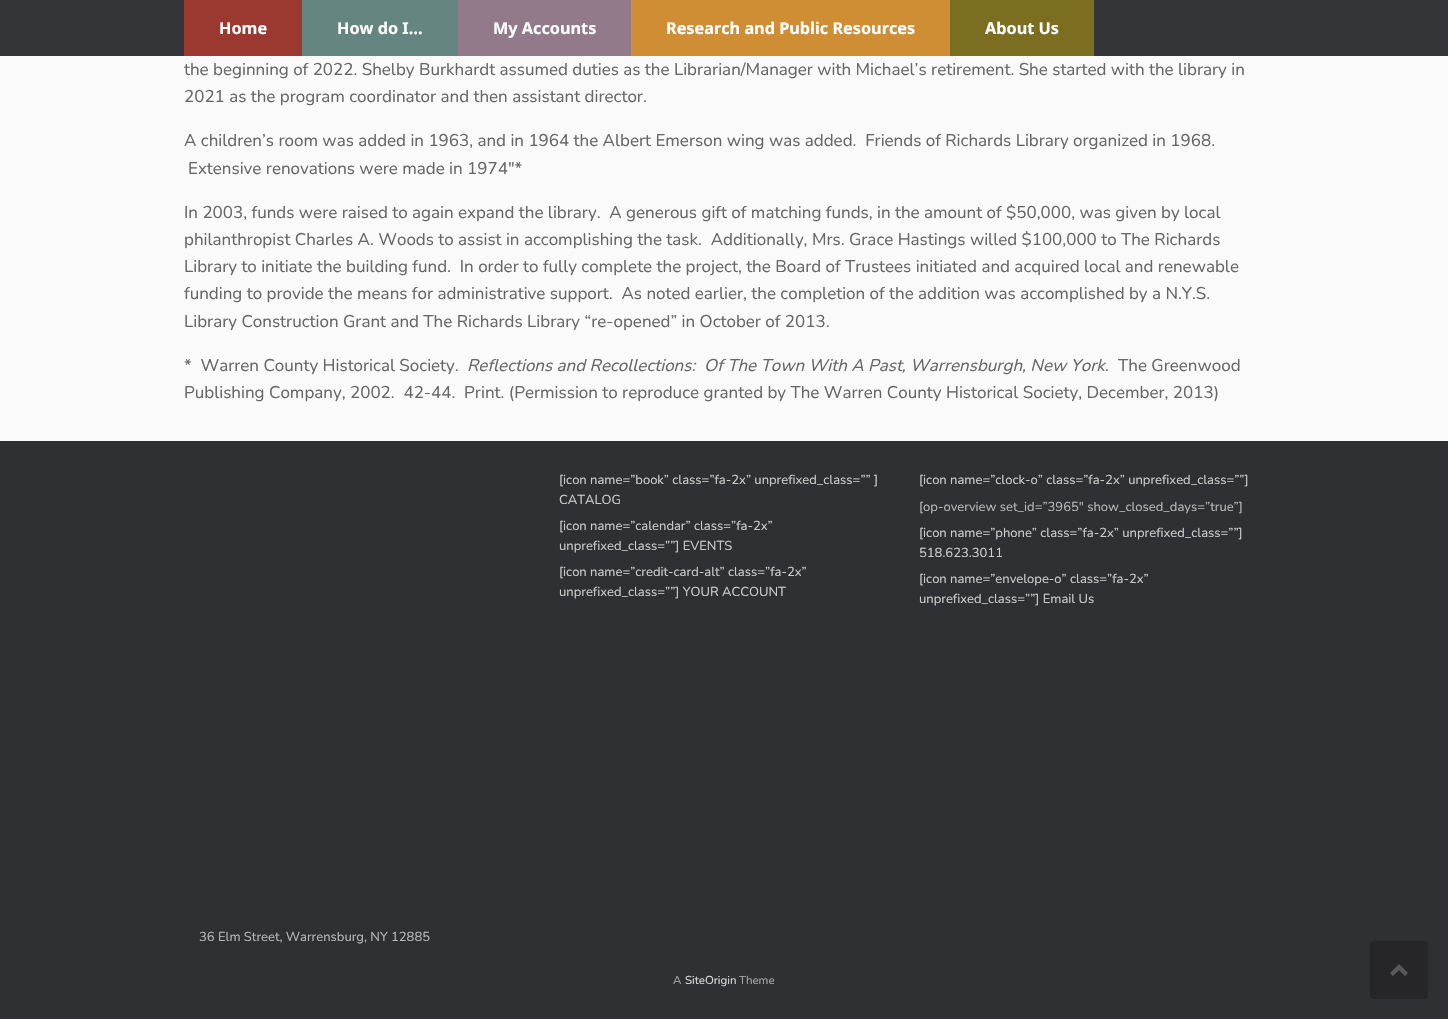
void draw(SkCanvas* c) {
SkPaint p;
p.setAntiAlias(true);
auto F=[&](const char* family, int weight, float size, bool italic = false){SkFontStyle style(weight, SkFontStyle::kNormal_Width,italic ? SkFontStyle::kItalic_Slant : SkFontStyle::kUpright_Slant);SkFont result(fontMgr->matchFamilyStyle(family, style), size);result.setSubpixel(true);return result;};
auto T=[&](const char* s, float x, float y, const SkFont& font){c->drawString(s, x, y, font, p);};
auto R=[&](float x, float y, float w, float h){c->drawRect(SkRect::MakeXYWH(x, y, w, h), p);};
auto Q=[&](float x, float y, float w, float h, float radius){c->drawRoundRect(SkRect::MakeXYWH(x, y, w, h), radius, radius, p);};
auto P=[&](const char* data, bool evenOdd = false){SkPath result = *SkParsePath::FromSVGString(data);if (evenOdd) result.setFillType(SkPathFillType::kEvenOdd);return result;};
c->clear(0xff2f3033);
p.setColor(0xff343538);
R(0,0,1448,56);
p.setColor(0xff9b382f);
R(184,0,118,56);
auto f1 = F("Noto Sans",700,16.25);
p.setColor(0xffffffff);
T("Home",219,34,f1);
p.setColor(0xff648580);
R(302,0,156,56);
p.setColor(0xffffffff);
T("How do I…",337,34,f1);
p.setColor(0xff927a8b);
R(458,0,173,56);
p.setColor(0xffffffff);
T("My Accounts",493,34,f1);
p.setColor(0xffcf8d34);
R(631,0,319,56);
p.setColor(0xffffffff);
T("Research and Public Resources",666,34,f1);
p.setColor(0xff7b6e21);
R(950,0,144,56);
p.setColor(0xffffffff);
T("About Us",985,34,f1);
p.setColor(0xfffafafa);
R(0,56,1448,385);
auto f2 = F("Nunito",400,17);
p.setColor(0xff666666);
T("the beginning of 2022. Shelby Burkhardt assumed duties as the Librarian/Manager with Michael’s retirement. She started with the library in",184,75,f2);
T("2021 as the program coordinator and then assistant director.",184,102,f2);
T("A children’s room was added in 1963, and in 1964 the Albert Emerson wing was added.  Friends of Richards Library organized in 1968.",184,146,f2);
T("Extensive renovations were made in 1974″*",188,174,f2);
T("In 2003, funds were raised to again expand the library.  A generous gift of matching funds, in the amount of $50,000, was given by local",184,218,f2);
T("philanthropist Charles A. Woods to assist in accomplishing the task.  Additionally, Mrs. Grace Hastings willed $100,000 to The Richards",184,245,f2);
T("Library to initiate the building fund.  In order to fully complete the project, the Board of Trustees initiated and acquired local and renewable",184,272,f2);
T("funding to provide the means for administrative support.  As noted earlier, the completion of the addition was accomplished by a N.Y.S.",184,299,f2);
T("Library Construction Grant and The Richards Library “re-opened” in October of 2013.",184,327,f2);
T("*  Warren County Historical Society.",184,371,f2);
auto f3 = F("Nunito",400,17,true);
T("Reflections and Recollections:  Of The Town With A Past, Warrensburgh, New York.",467,371,f3);
T("The Greenwood",1118,371,f2);
T("Publishing Company, 2002.  42-44.  Print. (Permission to reproduce granted by The Warren County Historical Society, December, 2013)",184,398,f2);
auto f4 = F("Nunito",400,13);
p.setColor(0xffcccccc);
T("[icon name=”book” class=”fa-2x” unprefixed_class=”” ]",559,484,f4);
T("CATALOG",559,504,f4);
T("[icon name=”calendar” class=”fa-2x”",559,530,f4);
T("unprefixed_class=””] EVENTS",559,550,f4);
T("[icon name=”credit-card-alt” class=”fa-2x”",559,576,f4);
T("unprefixed_class=””] YOUR ACCOUNT",559,596,f4);
T("[icon name=”clock-o” class=”fa-2x” unprefixed_class=””]",919,484,f4);
p.setColor(0xffb9b9b9);
T("[op-overview set_id=”3965″ show_closed_days=”true”]",919,511,f4);
p.setColor(0xffcccccc);
T("[icon name=”phone” class=”fa-2x” unprefixed_class=””]",919,537,f4);
T("518.623.3011",919,557,f4);
T("[icon name=”envelope-o” class=”fa-2x”",919,583,f4);
T("unprefixed_class=””] Email Us",919,603,f4);
p.setColor(0xffb9b9b9);
T("36 Elm Street, Warrensburg, NY 12885",199,941,f4);
auto f5 = F("Nunito",400,11.5);
p.setColor(0xffaaaaaa);
T("A",673,984,f5);
p.setColor(0xffdddddd);
T("SiteOrigin",685,984,f5);
p.setColor(0xffaaaaaa);
T("Theme",739,984,f5);
p.setColor(0xff262629);
Q(1370,941,58,58,3);
p.setColor(0xff59595c);
c->drawPath(P("M1408 973l-9-9l-9 9l3 3l6-6l6 6z"),p);
}
